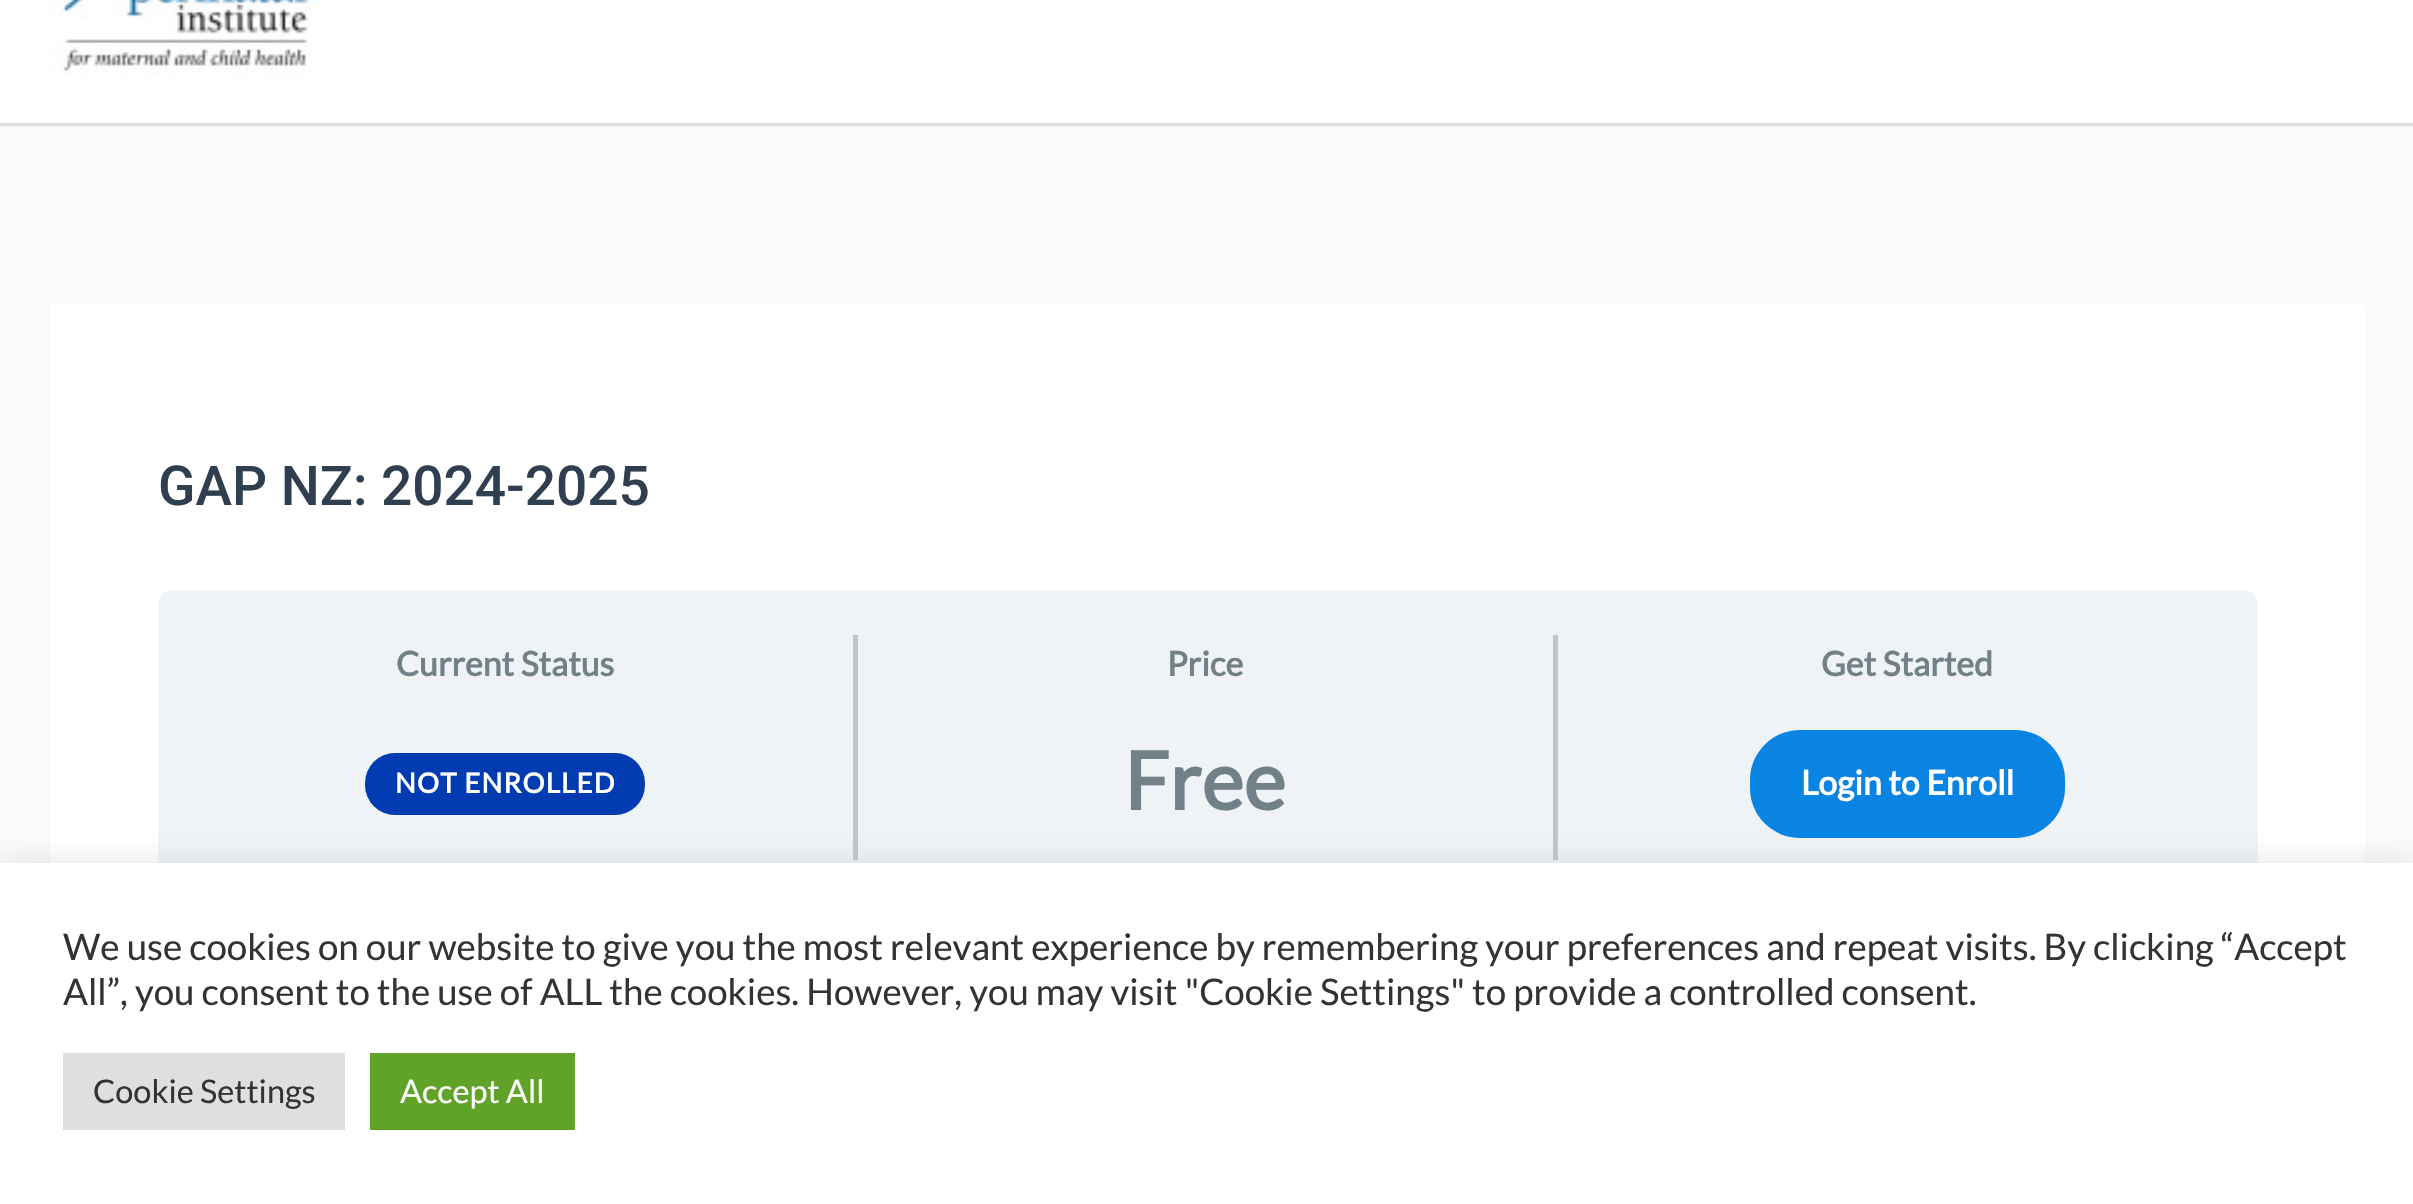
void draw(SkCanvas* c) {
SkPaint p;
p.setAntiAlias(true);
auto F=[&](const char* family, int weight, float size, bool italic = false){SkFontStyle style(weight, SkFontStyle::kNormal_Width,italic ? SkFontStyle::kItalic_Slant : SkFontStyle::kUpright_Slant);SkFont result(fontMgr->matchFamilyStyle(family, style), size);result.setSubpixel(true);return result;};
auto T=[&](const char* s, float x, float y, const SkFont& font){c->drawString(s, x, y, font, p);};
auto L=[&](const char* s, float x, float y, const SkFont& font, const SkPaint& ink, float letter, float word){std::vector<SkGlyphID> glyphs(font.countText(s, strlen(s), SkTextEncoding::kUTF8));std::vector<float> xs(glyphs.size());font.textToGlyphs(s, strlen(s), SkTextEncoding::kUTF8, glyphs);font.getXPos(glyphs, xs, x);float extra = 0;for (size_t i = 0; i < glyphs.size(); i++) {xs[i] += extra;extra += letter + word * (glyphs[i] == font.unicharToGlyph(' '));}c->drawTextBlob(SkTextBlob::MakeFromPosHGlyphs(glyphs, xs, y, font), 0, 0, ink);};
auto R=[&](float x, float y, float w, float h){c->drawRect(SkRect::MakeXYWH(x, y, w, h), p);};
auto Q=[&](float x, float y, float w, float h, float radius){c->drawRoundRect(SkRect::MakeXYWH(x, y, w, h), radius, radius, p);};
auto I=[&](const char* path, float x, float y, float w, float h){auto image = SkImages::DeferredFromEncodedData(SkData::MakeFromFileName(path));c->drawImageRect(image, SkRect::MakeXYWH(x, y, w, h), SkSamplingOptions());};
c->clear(0xfffafafa);
p.setColor(0xffffffff);
R(0,0,2413,123);
p.setColor(0xffdbdee0);
R(0,123,2413,3);
I("1.png",50,0,270,77);
p.setColor(0xffffffff);
R(50,305,2315,558);
auto f1 = F("Roboto",500,55);
p.setColor(0xff2f3f50);
T("GAP NZ: 2024-2025",158,505,f1);
p.setColor(0xfff0f3f6);
Q(158,590,2100,315,15);
p.setColor(0xffbec5cb);
R(853,635,5,225);
auto f2 = F("Lato",700,33.75);
p.setColor(0xff728188);
T("Current Status",396,676,f2);
p.setColor(0xff003bb1);
Q(365,753,280,62,30);
auto f3 = F("Lato",700,27.5);
p.setColor(0xffffffff);
L("NOT ENROLLED",395,793,f3,p,1.25,0);
p.setColor(0xffbec5cb);
R(1553,635,5,225);
p.setColor(0xff728188);
T("Price",1167,676,f2);
auto f4 = F("Lato",700,80);
T("Free",1124,810,f4);
T("Get Started",1821,676,f2);
p.setColor(0xff0984e3);
Q(1750,730,315,108,50);
p.setColor(0xffffffff);
T("Login to Enroll",1801,795,f2);
p.setColor(0x4dacabab);
p.setMaskFilter(SkMaskFilter::MakeBlur(kNormal_SkBlurStyle, 12.5));
c->drawRect(SkRect::MakeXYWH(0,860,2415,343),p);
p.setMaskFilter(nullptr);
p.setColor(0xffffffff);
R(0,863,2413,341);
auto f5 = F("Lato",400,36.67);
p.setColor(0xff333333);
T("We use cookies on our website to give you the most relevant experience by remembering your preferences and repeat visits. By clicking “Accept",63,960,f5);
T("All”, you consent to the use of ALL the cookies. However, you may visit \"Cookie Settings\" to provide a controlled consent.",63,1005,f5);
p.setColor(0xffdedfe0);
R(63,1053,282,77);
auto f6 = F("Lato",400,32.5);
p.setColor(0xff333333);
T("Cookie Settings",93,1103,f6);
p.setColor(0xff61a229);
R(370,1053,205,77);
p.setColor(0xffffffff);
T("Accept All",400,1103,f6);
}
